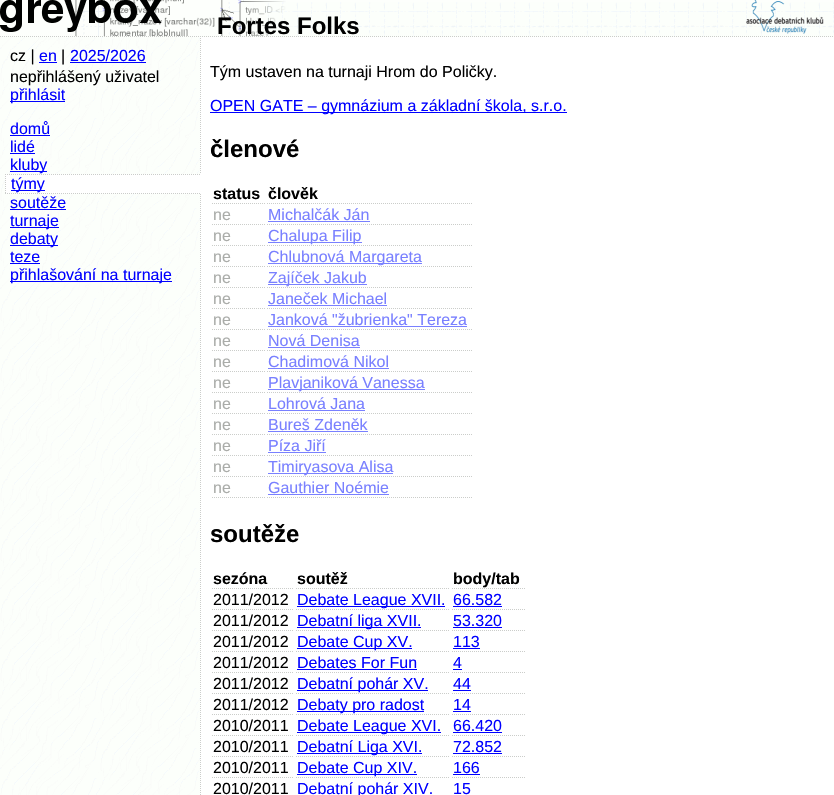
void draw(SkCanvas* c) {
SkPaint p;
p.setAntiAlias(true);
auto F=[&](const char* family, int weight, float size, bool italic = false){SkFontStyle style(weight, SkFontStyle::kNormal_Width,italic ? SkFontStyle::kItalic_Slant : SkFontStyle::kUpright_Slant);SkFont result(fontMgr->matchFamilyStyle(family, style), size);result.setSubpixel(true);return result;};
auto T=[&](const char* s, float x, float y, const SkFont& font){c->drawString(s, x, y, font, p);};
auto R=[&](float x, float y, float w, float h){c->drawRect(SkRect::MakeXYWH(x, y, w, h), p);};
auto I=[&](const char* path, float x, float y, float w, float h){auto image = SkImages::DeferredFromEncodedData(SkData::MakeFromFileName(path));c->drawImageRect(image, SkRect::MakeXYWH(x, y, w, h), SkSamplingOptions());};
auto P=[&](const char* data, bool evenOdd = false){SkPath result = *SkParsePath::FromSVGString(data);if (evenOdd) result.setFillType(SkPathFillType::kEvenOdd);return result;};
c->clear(0xffffffff);
I("1.png",0,37,201,758);
p.setColor(0xfffdfffc);
R(1,0,833,37);
I("2.png",244,2,590,34);
p.setStroke(true);
p.setStrokeWidth(1);
p.setColor(0xffcbcdca);
p.setPathEffect(SkDashPathEffect::Make({{1,1}}, 0));
c->drawPath(P("M0 36.5h834"),p);
p.setPathEffect(nullptr);
I("3.png",0,0,286,36);
auto f1 = F("Liberation Sans",700,24);
p.setStroke(false);
p.setColor(0xff000000);
T("Fortes Folks",217,34,f1);
I("4.png",746,0,78,34);
auto f2 = F("Liberation Sans",400,16);
T("cz |",10,61,f2);
p.setColor(0xff0000ff);
T("en",39,61,f2);
R(39,62,18,1);
p.setColor(0xff000000);
T("|",61,61,f2);
p.setColor(0xff0000ff);
T("2025/2026",70,61,f2);
R(70,62,76,1);
p.setColor(0xff000000);
T("nepřihlášený uživatel",10,82,f2);
p.setColor(0xff0000ff);
R(10,101,55,1);
T("přihlásit",10,100,f2);
T("domů",10,134,f2);
R(10,135,40,1);
T("lidé",10,152,f2);
R(10,153,25,1);
R(10,171,37,1);
T("kluby",10,170,f2);
p.setColor(0xffffffff);
R(5,174,196,20);
p.setStroke(true);
p.setColor(0xffcbcdca);
p.setPathEffect(SkDashPathEffect::Make({{1,1}}, 0));
c->drawPath(P("M5 174.5h196"),p);
p.setPathEffect(nullptr);
p.setPathEffect(SkDashPathEffect::Make({{1,1}}, 0));
c->drawPath(P("M5 193.5h196"),p);
p.setPathEffect(nullptr);
p.setPathEffect(SkDashPathEffect::Make({{1,1}}, 0));
c->drawPath(P("M5.5 174v20"),p);
p.setPathEffect(nullptr);
p.setStroke(false);
p.setColor(0xff0000ff);
R(11,190,34,1);
T("týmy",11,189,f2);
T("soutěže",10,208,f2);
R(10,209,56,1);
R(10,227,49,1);
T("turnaje",10,226,f2);
R(10,245,48,1);
T("debaty",10,244,f2);
T("teze",10,262,f2);
R(10,263,30,1);
R(10,281,162,1);
T("přihlašování na turnaje",10,280,f2);
p.setColor(0xff000000);
T("Tým ustaven na turnaji Hrom do Poličky.",210,77,f2);
p.setColor(0xff0000ff);
R(210,112,357,1);
T("OPEN GATE – gymnázium a základní škola, s.r.o.",210,111,f2);
p.setColor(0xff000000);
T("členové",210,157,f1);
p.setStroke(true);
p.setColor(0xffcbcdca);
p.setPathEffect(SkDashPathEffect::Make({{1,1}}, 0));
c->drawPath(P("M212 203.5h53"),p);
p.setPathEffect(nullptr);
auto f3 = F("Liberation Sans",700,16);
p.setStroke(false);
p.setColor(0xff000000);
T("status",213,199,f3);
p.setStroke(true);
p.setColor(0xffcbcdca);
p.setPathEffect(SkDashPathEffect::Make({{1,1}}, 0));
c->drawPath(P("M267 203.5h205"),p);
p.setPathEffect(nullptr);
p.setStroke(false);
p.setColor(0xff000000);
T("člověk",268,199,f3);
p.setStroke(true);
p.setColor(0xffcbcdca);
p.setPathEffect(SkDashPathEffect::Make({{1,1}}, 0));
c->drawPath(P("M212 224.5h53"),p);
p.setPathEffect(nullptr);
p.setStroke(false);
p.setColor(0xffaaaca9);
T("ne",213,220,f2);
p.setStroke(true);
p.setColor(0xffcbcdca);
p.setPathEffect(SkDashPathEffect::Make({{1,1}}, 0));
c->drawPath(P("M267 224.5h205"),p);
p.setPathEffect(nullptr);
p.setStroke(false);
p.setColor(0xff7980ff);
T("Michalčák Ján",268,220,f2);
R(268,221,102,1);
p.setStroke(true);
p.setColor(0xffcbcdca);
p.setPathEffect(SkDashPathEffect::Make({{1,1}}, 0));
c->drawPath(P("M212 245.5h53"),p);
p.setPathEffect(nullptr);
p.setStroke(false);
p.setColor(0xffaaaca9);
T("ne",213,241,f2);
p.setStroke(true);
p.setColor(0xffcbcdca);
p.setPathEffect(SkDashPathEffect::Make({{1,1}}, 0));
c->drawPath(P("M267 245.5h205"),p);
p.setPathEffect(nullptr);
p.setStroke(false);
p.setColor(0xff7980ff);
R(268,242,94,1);
T("Chalupa Filip",268,241,f2);
p.setStroke(true);
p.setColor(0xffcbcdca);
p.setPathEffect(SkDashPathEffect::Make({{1,1}}, 0));
c->drawPath(P("M212 266.5h53"),p);
p.setPathEffect(nullptr);
p.setStroke(false);
p.setColor(0xffaaaca9);
T("ne",213,262,f2);
p.setStroke(true);
p.setColor(0xffcbcdca);
p.setPathEffect(SkDashPathEffect::Make({{1,1}}, 0));
c->drawPath(P("M267 266.5h205"),p);
p.setPathEffect(nullptr);
p.setStroke(false);
p.setColor(0xff7980ff);
R(268,263,154,1);
T("Chlubnová Margareta",268,262,f2);
p.setStroke(true);
p.setColor(0xffcbcdca);
p.setPathEffect(SkDashPathEffect::Make({{1,1}}, 0));
c->drawPath(P("M212 287.5h53"),p);
p.setPathEffect(nullptr);
p.setStroke(false);
p.setColor(0xffaaaca9);
T("ne",213,283,f2);
p.setStroke(true);
p.setColor(0xffcbcdca);
p.setPathEffect(SkDashPathEffect::Make({{1,1}}, 0));
c->drawPath(P("M267 287.5h205"),p);
p.setPathEffect(nullptr);
p.setStroke(false);
p.setColor(0xff7980ff);
R(268,284,99,1);
T("Zajíček Jakub",268,283,f2);
p.setStroke(true);
p.setColor(0xffcbcdca);
p.setPathEffect(SkDashPathEffect::Make({{1,1}}, 0));
c->drawPath(P("M212 308.5h53"),p);
p.setPathEffect(nullptr);
p.setStroke(false);
p.setColor(0xffaaaca9);
T("ne",213,304,f2);
p.setStroke(true);
p.setColor(0xffcbcdca);
p.setPathEffect(SkDashPathEffect::Make({{1,1}}, 0));
c->drawPath(P("M267 308.5h205"),p);
p.setPathEffect(nullptr);
p.setStroke(false);
p.setColor(0xff7980ff);
T("Janeček Michael",268,304,f2);
R(268,305,119,1);
p.setStroke(true);
p.setColor(0xffcbcdca);
p.setPathEffect(SkDashPathEffect::Make({{1,1}}, 0));
c->drawPath(P("M212 329.5h53"),p);
p.setPathEffect(nullptr);
p.setStroke(false);
p.setColor(0xffaaaca9);
T("ne",213,325,f2);
p.setStroke(true);
p.setColor(0xffcbcdca);
p.setPathEffect(SkDashPathEffect::Make({{1,1}}, 0));
c->drawPath(P("M267 329.5h205"),p);
p.setPathEffect(nullptr);
p.setStroke(false);
p.setColor(0xff7980ff);
T("Janková \"žubrienka\" Tereza",268,325,f2);
R(268,326,199,1);
p.setStroke(true);
p.setColor(0xffcbcdca);
p.setPathEffect(SkDashPathEffect::Make({{1,1}}, 0));
c->drawPath(P("M212 350.5h53"),p);
p.setPathEffect(nullptr);
p.setStroke(false);
p.setColor(0xffaaaca9);
T("ne",213,346,f2);
p.setStroke(true);
p.setColor(0xffcbcdca);
p.setPathEffect(SkDashPathEffect::Make({{1,1}}, 0));
c->drawPath(P("M267 350.5h205"),p);
p.setPathEffect(nullptr);
p.setStroke(false);
p.setColor(0xff7980ff);
T("Nová Denisa",268,346,f2);
R(268,347,92,1);
p.setStroke(true);
p.setColor(0xffcbcdca);
p.setPathEffect(SkDashPathEffect::Make({{1,1}}, 0));
c->drawPath(P("M212 371.5h53"),p);
p.setPathEffect(nullptr);
p.setStroke(false);
p.setColor(0xffaaaca9);
T("ne",213,367,f2);
p.setStroke(true);
p.setColor(0xffcbcdca);
p.setPathEffect(SkDashPathEffect::Make({{1,1}}, 0));
c->drawPath(P("M267 371.5h205"),p);
p.setPathEffect(nullptr);
p.setStroke(false);
p.setColor(0xff7980ff);
T("Chadimová Nikol",268,367,f2);
R(268,368,121,1);
p.setStroke(true);
p.setColor(0xffcbcdca);
p.setPathEffect(SkDashPathEffect::Make({{1,1}}, 0));
c->drawPath(P("M212 392.5h53"),p);
p.setPathEffect(nullptr);
p.setStroke(false);
p.setColor(0xffaaaca9);
T("ne",213,388,f2);
p.setStroke(true);
p.setColor(0xffcbcdca);
p.setPathEffect(SkDashPathEffect::Make({{1,1}}, 0));
c->drawPath(P("M267 392.5h205"),p);
p.setPathEffect(nullptr);
p.setStroke(false);
p.setColor(0xff7980ff);
R(268,389,157,1);
T("Plavjaniková Vanessa",268,388,f2);
p.setStroke(true);
p.setColor(0xffcbcdca);
p.setPathEffect(SkDashPathEffect::Make({{1,1}}, 0));
c->drawPath(P("M212 413.5h53"),p);
p.setPathEffect(nullptr);
p.setStroke(false);
p.setColor(0xffaaaca9);
T("ne",213,409,f2);
p.setStroke(true);
p.setColor(0xffcbcdca);
p.setPathEffect(SkDashPathEffect::Make({{1,1}}, 0));
c->drawPath(P("M267 413.5h205"),p);
p.setPathEffect(nullptr);
p.setStroke(false);
p.setColor(0xff7980ff);
T("Lohrová Jana",268,409,f2);
R(268,410,97,1);
p.setStroke(true);
p.setColor(0xffcbcdca);
p.setPathEffect(SkDashPathEffect::Make({{1,1}}, 0));
c->drawPath(P("M212 434.5h53"),p);
p.setPathEffect(nullptr);
p.setStroke(false);
p.setColor(0xffaaaca9);
T("ne",213,430,f2);
p.setStroke(true);
p.setColor(0xffcbcdca);
p.setPathEffect(SkDashPathEffect::Make({{1,1}}, 0));
c->drawPath(P("M267 434.5h205"),p);
p.setPathEffect(nullptr);
p.setStroke(false);
p.setColor(0xff7980ff);
T("Bureš Zdeněk",268,430,f2);
R(268,431,100,1);
p.setStroke(true);
p.setColor(0xffcbcdca);
p.setPathEffect(SkDashPathEffect::Make({{1,1}}, 0));
c->drawPath(P("M212 455.5h53"),p);
p.setPathEffect(nullptr);
p.setStroke(false);
p.setColor(0xffaaaca9);
T("ne",213,451,f2);
p.setStroke(true);
p.setColor(0xffcbcdca);
p.setPathEffect(SkDashPathEffect::Make({{1,1}}, 0));
c->drawPath(P("M267 455.5h205"),p);
p.setPathEffect(nullptr);
p.setStroke(false);
p.setColor(0xff7980ff);
T("Píza Jiří",268,451,f2);
R(268,452,58,1);
p.setStroke(true);
p.setColor(0xffcbcdca);
p.setPathEffect(SkDashPathEffect::Make({{1,1}}, 0));
c->drawPath(P("M212 476.5h53"),p);
p.setPathEffect(nullptr);
p.setStroke(false);
p.setColor(0xffaaaca9);
T("ne",213,472,f2);
p.setStroke(true);
p.setColor(0xffcbcdca);
p.setPathEffect(SkDashPathEffect::Make({{1,1}}, 0));
c->drawPath(P("M267 476.5h205"),p);
p.setPathEffect(nullptr);
p.setStroke(false);
p.setColor(0xff7980ff);
R(268,473,125,1);
T("Timiryasova Alisa",268,472,f2);
p.setStroke(true);
p.setColor(0xffcbcdca);
p.setPathEffect(SkDashPathEffect::Make({{1,1}}, 0));
c->drawPath(P("M212 497.5h53"),p);
p.setPathEffect(nullptr);
p.setStroke(false);
p.setColor(0xffaaaca9);
T("ne",213,493,f2);
p.setStroke(true);
p.setColor(0xffcbcdca);
p.setPathEffect(SkDashPathEffect::Make({{1,1}}, 0));
c->drawPath(P("M267 497.5h205"),p);
p.setPathEffect(nullptr);
p.setStroke(false);
p.setColor(0xff7980ff);
T("Gauthier Noémie",268,493,f2);
R(268,494,121,1);
p.setColor(0xff000000);
T("soutěže",210,542,f1);
p.setStroke(true);
p.setColor(0xffcbcdca);
p.setPathEffect(SkDashPathEffect::Make({{1,1}}, 0));
c->drawPath(P("M212 588.5h82"),p);
p.setPathEffect(nullptr);
p.setStroke(false);
p.setColor(0xff000000);
T("sezóna",213,584,f3);
p.setStroke(true);
p.setColor(0xffcbcdca);
p.setPathEffect(SkDashPathEffect::Make({{1,1}}, 0));
c->drawPath(P("M296 588.5h154"),p);
p.setPathEffect(nullptr);
p.setStroke(false);
p.setColor(0xff000000);
T("soutěž",297,584,f3);
p.setStroke(true);
p.setColor(0xffcbcdca);
p.setPathEffect(SkDashPathEffect::Make({{1,1}}, 0));
c->drawPath(P("M452 588.5h73"),p);
p.setPathEffect(nullptr);
p.setStroke(false);
p.setColor(0xff000000);
T("body/tab",453,584,f3);
p.setStroke(true);
p.setColor(0xffcbcdca);
p.setPathEffect(SkDashPathEffect::Make({{1,1}}, 0));
c->drawPath(P("M212 609.5h82"),p);
p.setPathEffect(nullptr);
p.setStroke(false);
p.setColor(0xff000000);
T("2011/2012",213,605,f2);
p.setStroke(true);
p.setColor(0xffcbcdca);
p.setPathEffect(SkDashPathEffect::Make({{1,1}}, 0));
c->drawPath(P("M296 609.5h154"),p);
p.setPathEffect(nullptr);
p.setStroke(false);
p.setColor(0xff0000ff);
R(297,606,148,1);
T("Debate League XVII.",297,605,f2);
p.setStroke(true);
p.setColor(0xffcbcdca);
p.setPathEffect(SkDashPathEffect::Make({{1,1}}, 0));
c->drawPath(P("M452 609.5h73"),p);
p.setPathEffect(nullptr);
p.setStroke(false);
p.setColor(0xff0000ff);
T("66.582",453,605,f2);
R(453,606,49,1);
p.setStroke(true);
p.setColor(0xffcbcdca);
p.setPathEffect(SkDashPathEffect::Make({{1,1}}, 0));
c->drawPath(P("M212 630.5h82"),p);
p.setPathEffect(nullptr);
p.setStroke(false);
p.setColor(0xff000000);
T("2011/2012",213,626,f2);
p.setStroke(true);
p.setColor(0xffcbcdca);
p.setPathEffect(SkDashPathEffect::Make({{1,1}}, 0));
c->drawPath(P("M296 630.5h154"),p);
p.setPathEffect(nullptr);
p.setStroke(false);
p.setColor(0xff0000ff);
R(297,627,124,1);
T("Debatní liga XVII.",297,626,f2);
p.setStroke(true);
p.setColor(0xffcbcdca);
p.setPathEffect(SkDashPathEffect::Make({{1,1}}, 0));
c->drawPath(P("M452 630.5h73"),p);
p.setPathEffect(nullptr);
p.setStroke(false);
p.setColor(0xff0000ff);
T("53.320",453,626,f2);
R(453,627,49,1);
p.setStroke(true);
p.setColor(0xffcbcdca);
p.setPathEffect(SkDashPathEffect::Make({{1,1}}, 0));
c->drawPath(P("M212 651.5h82"),p);
p.setPathEffect(nullptr);
p.setStroke(false);
p.setColor(0xff000000);
T("2011/2012",213,647,f2);
p.setStroke(true);
p.setColor(0xffcbcdca);
p.setPathEffect(SkDashPathEffect::Make({{1,1}}, 0));
c->drawPath(P("M296 651.5h154"),p);
p.setPathEffect(nullptr);
p.setStroke(false);
p.setColor(0xff0000ff);
R(297,648,115,1);
T("Debate Cup XV.",297,647,f2);
p.setStroke(true);
p.setColor(0xffcbcdca);
p.setPathEffect(SkDashPathEffect::Make({{1,1}}, 0));
c->drawPath(P("M452 651.5h73"),p);
p.setPathEffect(nullptr);
p.setStroke(false);
p.setColor(0xff0000ff);
T("113",453,647,f2);
R(453,648,27,1);
p.setStroke(true);
p.setColor(0xffcbcdca);
p.setPathEffect(SkDashPathEffect::Make({{1,1}}, 0));
c->drawPath(P("M212 672.5h82"),p);
p.setPathEffect(nullptr);
p.setStroke(false);
p.setColor(0xff000000);
T("2011/2012",213,668,f2);
p.setStroke(true);
p.setColor(0xffcbcdca);
p.setPathEffect(SkDashPathEffect::Make({{1,1}}, 0));
c->drawPath(P("M296 672.5h154"),p);
p.setPathEffect(nullptr);
p.setStroke(false);
p.setColor(0xff0000ff);
T("Debates For Fun",297,668,f2);
R(297,669,120,1);
p.setStroke(true);
p.setColor(0xffcbcdca);
p.setPathEffect(SkDashPathEffect::Make({{1,1}}, 0));
c->drawPath(P("M452 672.5h73"),p);
p.setPathEffect(nullptr);
p.setStroke(false);
p.setColor(0xff0000ff);
T("4",453,668,f2);
R(453,669,9,1);
p.setStroke(true);
p.setColor(0xffcbcdca);
p.setPathEffect(SkDashPathEffect::Make({{1,1}}, 0));
c->drawPath(P("M212 693.5h82"),p);
p.setPathEffect(nullptr);
p.setStroke(false);
p.setColor(0xff000000);
T("2011/2012",213,689,f2);
p.setStroke(true);
p.setColor(0xffcbcdca);
p.setPathEffect(SkDashPathEffect::Make({{1,1}}, 0));
c->drawPath(P("M296 693.5h154"),p);
p.setPathEffect(nullptr);
p.setStroke(false);
p.setColor(0xff0000ff);
R(297,690,131,1);
T("Debatní pohár XV.",297,689,f2);
p.setStroke(true);
p.setColor(0xffcbcdca);
p.setPathEffect(SkDashPathEffect::Make({{1,1}}, 0));
c->drawPath(P("M452 693.5h73"),p);
p.setPathEffect(nullptr);
p.setStroke(false);
p.setColor(0xff0000ff);
T("44",453,689,f2);
R(453,690,18,1);
p.setStroke(true);
p.setColor(0xffcbcdca);
p.setPathEffect(SkDashPathEffect::Make({{1,1}}, 0));
c->drawPath(P("M212 714.5h82"),p);
p.setPathEffect(nullptr);
p.setStroke(false);
p.setColor(0xff000000);
T("2011/2012",213,710,f2);
p.setStroke(true);
p.setColor(0xffcbcdca);
p.setPathEffect(SkDashPathEffect::Make({{1,1}}, 0));
c->drawPath(P("M296 714.5h154"),p);
p.setPathEffect(nullptr);
p.setStroke(false);
p.setColor(0xff0000ff);
R(297,711,127,1);
T("Debaty pro radost",297,710,f2);
p.setStroke(true);
p.setColor(0xffcbcdca);
p.setPathEffect(SkDashPathEffect::Make({{1,1}}, 0));
c->drawPath(P("M452 714.5h73"),p);
p.setPathEffect(nullptr);
p.setStroke(false);
p.setColor(0xff0000ff);
T("14",453,710,f2);
R(453,711,18,1);
p.setStroke(true);
p.setColor(0xffcbcdca);
p.setPathEffect(SkDashPathEffect::Make({{1,1}}, 0));
c->drawPath(P("M212 735.5h82"),p);
p.setPathEffect(nullptr);
p.setStroke(false);
p.setColor(0xff000000);
T("2010/2011",213,731,f2);
p.setStroke(true);
p.setColor(0xffcbcdca);
p.setPathEffect(SkDashPathEffect::Make({{1,1}}, 0));
c->drawPath(P("M296 735.5h154"),p);
p.setPathEffect(nullptr);
p.setStroke(false);
p.setColor(0xff0000ff);
R(297,732,144,1);
T("Debate League XVI.",297,731,f2);
p.setStroke(true);
p.setColor(0xffcbcdca);
p.setPathEffect(SkDashPathEffect::Make({{1,1}}, 0));
c->drawPath(P("M452 735.5h73"),p);
p.setPathEffect(nullptr);
p.setStroke(false);
p.setColor(0xff0000ff);
T("66.420",453,731,f2);
R(453,732,49,1);
p.setStroke(true);
p.setColor(0xffcbcdca);
p.setPathEffect(SkDashPathEffect::Make({{1,1}}, 0));
c->drawPath(P("M212 756.5h82"),p);
p.setPathEffect(nullptr);
p.setStroke(false);
p.setColor(0xff000000);
T("2010/2011",213,752,f2);
p.setStroke(true);
p.setColor(0xffcbcdca);
p.setPathEffect(SkDashPathEffect::Make({{1,1}}, 0));
c->drawPath(P("M296 756.5h154"),p);
p.setPathEffect(nullptr);
p.setStroke(false);
p.setColor(0xff0000ff);
R(297,753,125,1);
T("Debatní Liga XVI.",297,752,f2);
p.setStroke(true);
p.setColor(0xffcbcdca);
p.setPathEffect(SkDashPathEffect::Make({{1,1}}, 0));
c->drawPath(P("M452 756.5h73"),p);
p.setPathEffect(nullptr);
p.setStroke(false);
p.setColor(0xff0000ff);
T("72.852",453,752,f2);
R(453,753,49,1);
p.setStroke(true);
p.setColor(0xffcbcdca);
p.setPathEffect(SkDashPathEffect::Make({{1,1}}, 0));
c->drawPath(P("M212 777.5h82"),p);
p.setPathEffect(nullptr);
p.setStroke(false);
p.setColor(0xff000000);
T("2010/2011",213,773,f2);
p.setStroke(true);
p.setColor(0xffcbcdca);
p.setPathEffect(SkDashPathEffect::Make({{1,1}}, 0));
c->drawPath(P("M296 777.5h154"),p);
p.setPathEffect(nullptr);
p.setStroke(false);
p.setColor(0xff0000ff);
R(297,774,120,1);
T("Debate Cup XIV.",297,773,f2);
p.setStroke(true);
p.setColor(0xffcbcdca);
p.setPathEffect(SkDashPathEffect::Make({{1,1}}, 0));
c->drawPath(P("M452 777.5h73"),p);
p.setPathEffect(nullptr);
p.setStroke(false);
p.setColor(0xff0000ff);
T("166",453,773,f2);
R(453,774,27,1);
p.setColor(0xff000000);
T("2010/2011",213,794,f2);
p.setColor(0xff0000ff);
T("Debatní pohár XIV.",297,794,f2);
T("15",453,794,f2);
}
